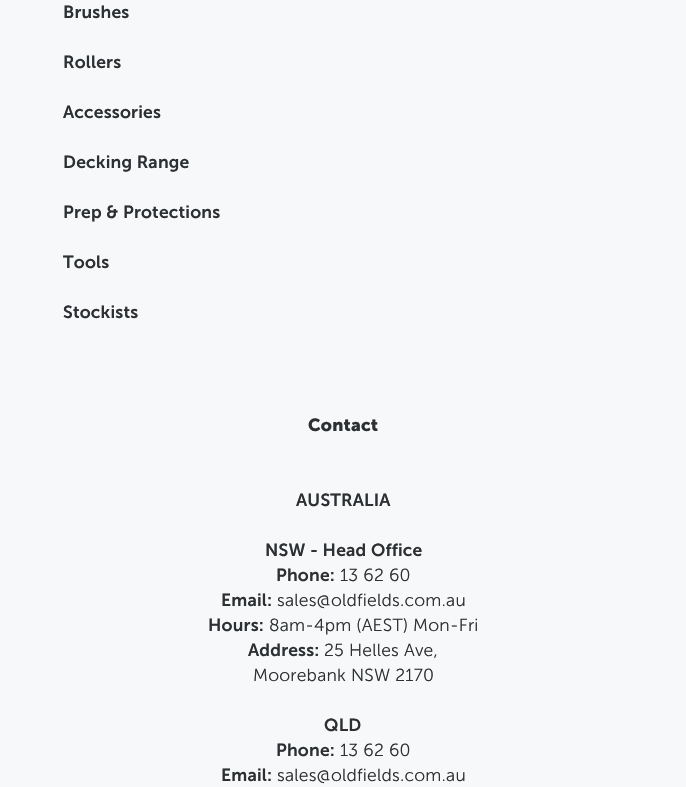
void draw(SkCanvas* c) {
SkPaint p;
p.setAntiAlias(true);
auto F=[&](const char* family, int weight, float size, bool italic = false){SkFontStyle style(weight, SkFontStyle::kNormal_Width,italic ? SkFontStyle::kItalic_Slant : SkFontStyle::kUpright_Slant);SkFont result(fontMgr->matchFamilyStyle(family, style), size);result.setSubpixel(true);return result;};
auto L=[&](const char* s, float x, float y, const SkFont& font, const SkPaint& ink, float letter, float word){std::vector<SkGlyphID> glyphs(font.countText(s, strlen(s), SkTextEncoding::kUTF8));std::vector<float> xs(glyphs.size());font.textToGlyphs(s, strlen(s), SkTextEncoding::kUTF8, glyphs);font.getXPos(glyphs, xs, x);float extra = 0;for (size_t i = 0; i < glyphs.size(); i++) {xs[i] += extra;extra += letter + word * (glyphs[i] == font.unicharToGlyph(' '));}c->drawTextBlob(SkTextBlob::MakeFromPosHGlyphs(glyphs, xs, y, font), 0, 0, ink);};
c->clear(0xfff7f8fa);
auto f1 = F("Museo Sans",600,17.5);
p.setColor(0xff2d3032);
L("Brushes",63,18,f1,p,.2,0);
L("Rollers",63,68,f1,p,.2,0);
L("Accessories",63,118,f1,p,.2,0);
L("Decking Range",63,168,f1,p,.2,0);
L("Prep & Protections",63,218,f1,p,.2,0);
L("Tools",63,268,f1,p,.2,0);
L("Stockists",63,318,f1,p,.2,0);
auto f2 = F("Museo Sans",700,17.5);
L("Contact",308,431,f2,p,.2,0);
L("AUSTRALIA",296,506,f1,p,.2,0);
L("NSW - Head Office",265,556,f1,p,.2,0);
L("Phone:",276,581,f1,p,.2,0);
auto f3 = F("Museo Sans",300,17.5);
L("13 62 60",340,581,f3,p,.2,0);
L("Email:",221,606,f1,p,.2,0);
L("sales@oldfields.com.au",277,606,f3,p,.2,0);
L("Hours:",208,631,f1,p,.2,0);
L("8am-4pm (AEST) Mon-Fri",269,631,f3,p,.2,0);
L("Address:",248,656,f1,p,.2,0);
L("25 Helles Ave,",324,656,f3,p,.2,0);
L("Moorebank NSW 2170",253,681,f3,p,.2,0);
L("QLD",324,731,f1,p,.2,0);
L("Phone:",276,756,f1,p,.2,0);
L("13 62 60",340,756,f3,p,.2,0);
L("Email:",221,781,f1,p,.2,0);
L("sales@oldfields.com.au",277,781,f3,p,.2,0);
}
